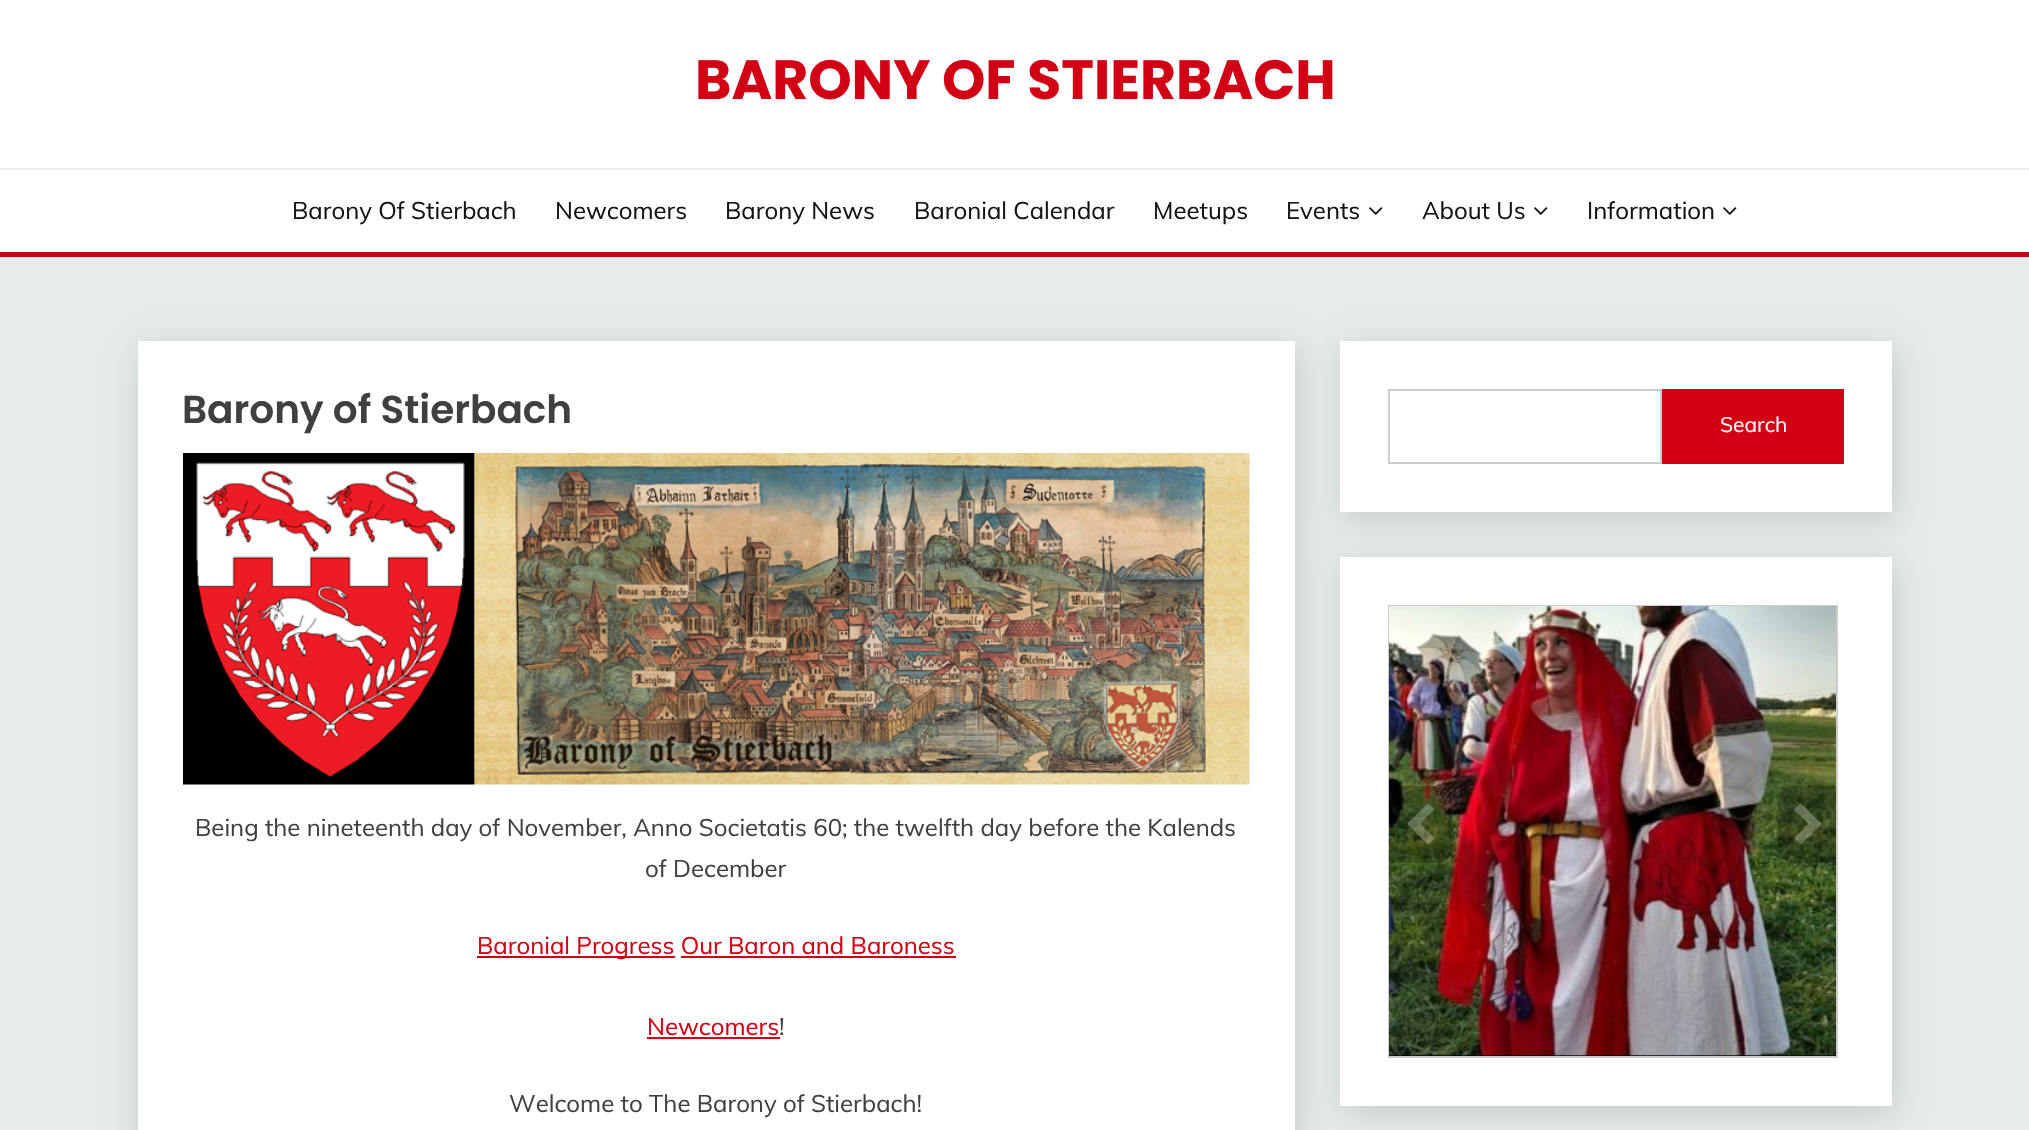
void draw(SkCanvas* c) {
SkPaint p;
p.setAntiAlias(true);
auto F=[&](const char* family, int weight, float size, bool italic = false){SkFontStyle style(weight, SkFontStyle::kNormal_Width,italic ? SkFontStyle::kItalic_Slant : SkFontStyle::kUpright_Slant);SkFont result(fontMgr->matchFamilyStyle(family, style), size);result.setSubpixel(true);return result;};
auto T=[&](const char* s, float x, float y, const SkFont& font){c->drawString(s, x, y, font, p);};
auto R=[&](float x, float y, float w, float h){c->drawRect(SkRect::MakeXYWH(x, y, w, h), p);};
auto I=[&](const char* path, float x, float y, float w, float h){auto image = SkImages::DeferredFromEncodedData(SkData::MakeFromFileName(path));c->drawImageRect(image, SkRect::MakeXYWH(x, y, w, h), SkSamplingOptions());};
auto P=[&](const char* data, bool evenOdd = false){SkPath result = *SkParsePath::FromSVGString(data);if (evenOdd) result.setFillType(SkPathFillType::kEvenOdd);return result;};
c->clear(0xffe5ece9);
p.setColor(0xffffffff);
R(0,0,2029,252);
p.setColor(0xffeeeeee);
R(0,168,2029,2);
auto f1 = F("Poppins",700,55.25);
p.setColor(0xffd10014);
T("BARONY OF STIERBACH",695,99,f1);
R(0,252,2029,5);
auto f2 = F("Muli",400,24);
p.setColor(0xff141413);
T("Barony Of Stierbach",292,219,f2);
T("Newcomers",555,219,f2);
T("Barony News",725,219,f2);
T("Baronial Calendar",914,219,f2);
T("Meetups",1153,219,f2);
T("Events",1286,219,f2);
I("1.png",1369,207,14,8);
T("About Us",1422,219,f2);
I("1.png",1534,207,14,8);
T("Information",1587,219,f2);
I("1.png",1723,207,14,8);
p.setColor(0x24000000);
p.setMaskFilter(SkMaskFilter::MakeBlur(kNormal_SkBlurStyle, 15));
c->drawRect(SkRect::MakeXYWH(141,348,1157,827),p);
p.setMaskFilter(nullptr);
p.setColor(0xffffffff);
R(138,341,1157,789);
auto f3 = F("Poppins",600,39);
p.setColor(0xff404040);
T("Barony of Stierbach",182,423,f3);
I("2.png",183,453,1067,332);
T("Being the nineteenth day of November, Anno Societatis 60; the twelfth day before the Kalends",195,836,f2);
T("of December",645,877,f2);
p.setColor(0xffd10014);
R(477,956,198,2);
T("Baronial Progress Our Baron and Baroness",477,954,f2);
R(681,956,275,2);
T("Newcomers",647,1035,f2);
R(647,1037,133,2);
p.setColor(0xff404040);
T("!",779,1035,f2);
T("Welcome to The Barony of Stierbach!",509,1112,f2);
p.setColor(0x24000000);
p.setMaskFilter(SkMaskFilter::MakeBlur(kNormal_SkBlurStyle, 15));
c->drawRect(SkRect::MakeXYWH(1343,348,552,171),p);
p.setMaskFilter(nullptr);
p.setColor(0xffffffff);
R(1340,341,552,171);
p.setStroke(true);
p.setStrokeWidth(2);
p.setColor(0xffcccccc);
c->drawRect(SkRect::MakeXYWH(1389,390,272,73),p);
p.setStroke(false);
p.setColor(0xffd10014);
R(1662,389,182,75);
auto f4 = F("Muli",400,21);
p.setColor(0xffffffff);
T("Search",1720,432,f4);
p.setColor(0x24000000);
p.setMaskFilter(SkMaskFilter::MakeBlur(kNormal_SkBlurStyle, 15));
c->drawRect(SkRect::MakeXYWH(1343,564,552,549),p);
p.setMaskFilter(nullptr);
p.setColor(0xffffffff);
R(1340,557,552,549);
p.setStroke(true);
p.setColor(0xffcccccc);
c->drawRect(SkRect::MakeXYWH(1389,606,448,451),p);
I("3.png",1389,606,447,450);
p.setStroke(false);
p.setColor(0x40000000);
c->drawPath(P("M1389 786h48c8.5 0 15 6.5 15 15v47c0 8.5-6.5 15-15 15h-48z"),p);
I("4.png",1408,803,26,41);
c->drawPath(P("M1793 786h43v77h-43c-8.5 0-15-6.5-15-15v-47c0-8.5 6.5-15 15-15z"),p);
I("5.png",1794,803,27,41);
p.setColor(0xb3000000);
R(1389,1055,447,1);
}
